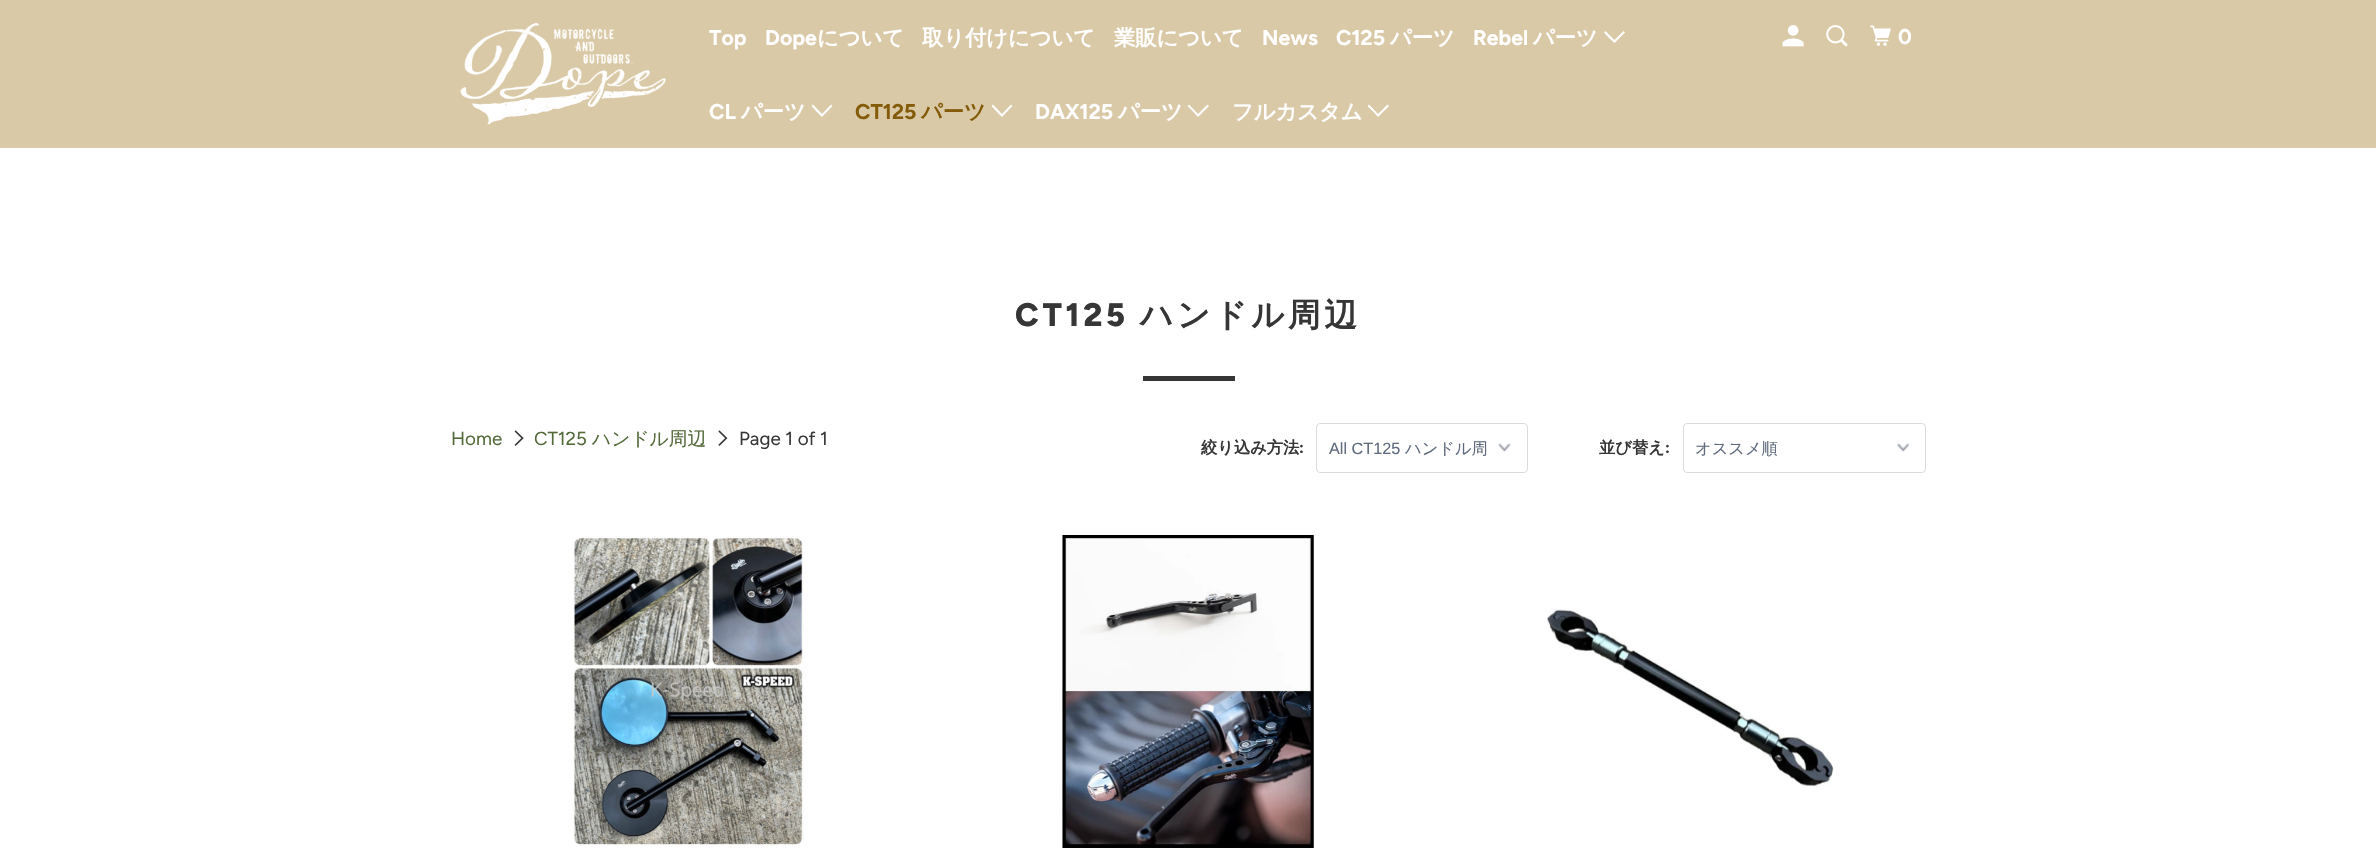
void draw(SkCanvas* c) {
SkPaint p;
p.setAntiAlias(true);
auto F=[&](const char* family, int weight, float size, bool italic = false){SkFontStyle style(weight, SkFontStyle::kNormal_Width,italic ? SkFontStyle::kItalic_Slant : SkFontStyle::kUpright_Slant);SkFont result(fontMgr->matchFamilyStyle(family, style), size);result.setSubpixel(true);return result;};
auto T=[&](const char* s, float x, float y, const SkFont& font){c->drawString(s, x, y, font, p);};
auto L=[&](const char* s, float x, float y, const SkFont& font, const SkPaint& ink, float letter, float word){std::vector<SkGlyphID> glyphs(font.countText(s, strlen(s), SkTextEncoding::kUTF8));std::vector<float> xs(glyphs.size());font.textToGlyphs(s, strlen(s), SkTextEncoding::kUTF8, glyphs);font.getXPos(glyphs, xs, x);float extra = 0;for (size_t i = 0; i < glyphs.size(); i++) {xs[i] += extra;extra += letter + word * (glyphs[i] == font.unicharToGlyph(' '));}c->drawTextBlob(SkTextBlob::MakeFromPosHGlyphs(glyphs, xs, y, font), 0, 0, ink);};
auto R=[&](float x, float y, float w, float h){c->drawRect(SkRect::MakeXYWH(x, y, w, h), p);};
auto I=[&](const char* path, float x, float y, float w, float h){auto image = SkImages::DeferredFromEncodedData(SkData::MakeFromFileName(path));c->drawImageRect(image, SkRect::MakeXYWH(x, y, w, h), SkSamplingOptions());};
auto P=[&](const char* data, bool evenOdd = false){SkPath result = *SkParsePath::FromSVGString(data);if (evenOdd) result.setFillType(SkPathFillType::kEvenOdd);return result;};
c->clear(0xffffffff);
p.setColor(0xffd9c9a6);
R(0,0,2376,148);
I("1.png",460,23,206,102);
auto f1 = F("Figtree",700,21.25);
p.setColor(0xffffffff);
T("Top",709,45,f1);
T("Dope",765,45,f1);
auto f2 = F("WenQuanYi Zen Hei",700,21.25);
T("について",817,45,f2);
T("取り付けについて",922,45,f2);
T("業販について",1114,45,f2);
T("News",1262,45,f1);
T("C125",1336,45,f1);
T("パーツ",1390,45,f2);
T("Rebel",1473,45,f1);
T("パーツ",1533,45,f2);
c->drawPath(P("M1609 38l-5-5.5l1.5-1.5l9 9l9-9l1.5 1.5l-10.5 10.5z"),p);
T("CL",709,119,f1);
T("パーツ",741,119,f2);
c->drawPath(P("M816.5 111.5l-5-5.5l1.5-1.5l9 9.5l9-9.5l1.5 1.5l-10.5 11z"),p);
p.setColor(0xff835b09);
T("CT125",855,119,f1);
T("パーツ",921,119,f2);
p.setColor(0xffffffff);
c->drawPath(P("M996.5 111.5l-5-5.5l1.5-1.5l9 9.5l9-9.5l1.5 1.5l-10.5 11z"),p);
T("DAX125",1035,119,f1);
T("パーツ",1118,119,f2);
c->drawPath(P("M1193 111.5l-5.5-5.5l1.5-1.5l9 9.5l9.5-9.5l1.5 1.5l-11 11z"),p);
T("フルカスタム",1232,119,f2);
c->drawPath(P("M1373 111.5l-5.5-5.5l1.5-1.5l9 9.5l9.5-9.5l1.5 1.5l-11 11z"),p);
I("2.png",1782,25,22,22);
I("3.png",1826,25,22,22);
I("4.png",1870,25,21,21);
T("0",1898,44,f1);
auto f3 = F("Figtree",800,32.5);
p.setColor(0xff363636);
L("CT125",1015,326,f3,p,3.75,0);
auto f4 = F("WenQuanYi Zen Hei",700,32.5);
L("ハンドル周辺",1140,326,f4,p,3.75,0);
R(1143,376,92,5);
auto f5 = F("Figtree",400,18.75);
p.setColor(0xff546a3a);
T("Home",451,445,f5);
I("5.png",514,430,10,16);
T("CT125",534,445,f5);
auto f6 = F("WenQuanYi Zen Hei",500,18.75);
T("ハンドル周辺",592,445,f6);
I("6.png",718,430,10,16);
p.setColor(0xff363636);
T("Page 1 of 1",739,445,f5);
auto f7 = F("WenQuanYi Zen Hei",700,16.25);
T("絞り込み方法",1201,453,f7);
auto f8 = F("Figtree",700,16.25);
T(":",1299,453,f8);
I("7.png",1498,443,13,9);
p.setStroke(true);
p.setStrokeWidth(1);
p.setColor(0xffd9dbdc);
c->drawRoundRect(SkRect::MakeXYWH(1316.5,423.5,211,49),3.5,3.5,p);
auto f9 = F("Liberation Sans",400,16.25);
p.setStroke(false);
p.setColor(0xff5f6a7d);
T("All CT125",1329,454,f9);
auto f10 = F("WenQuanYi Zen Hei",500,16.25);
T("ハンドル周",1405,454,f10);
p.setColor(0xff363636);
T("並び替え",1599,453,f7);
T(":",1665,453,f8);
I("8.png",1897,443,12,9);
p.setStroke(true);
p.setColor(0xffd9dbdc);
c->drawRoundRect(SkRect::MakeXYWH(1683.5,423.5,242,49),3.5,3.5,p);
p.setStroke(false);
p.setColor(0xff5f6a7d);
T("オススメ順",1695,454,f10);
I("9.png",571,536,234,310);
I("10.png",1062,535,252,313);
I("11.png",1547,609,287,179);
}
